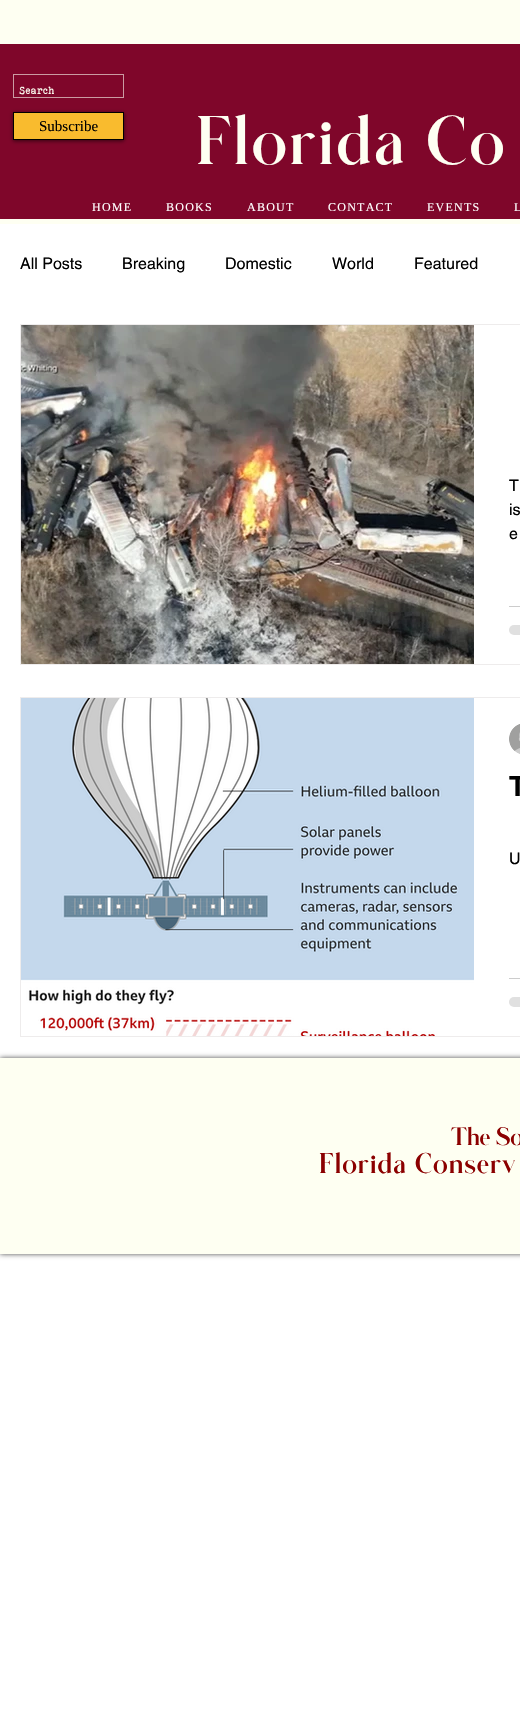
void draw(SkCanvas* c) {
SkPaint p;
p.setAntiAlias(true);
auto F=[&](const char* family, int weight, float size, bool italic = false){SkFontStyle style(weight, SkFontStyle::kNormal_Width,italic ? SkFontStyle::kItalic_Slant : SkFontStyle::kUpright_Slant);SkFont result(fontMgr->matchFamilyStyle(family, style), size);result.setSubpixel(true);return result;};
auto T=[&](const char* s, float x, float y, const SkFont& font){c->drawString(s, x, y, font, p);};
auto L=[&](const char* s, float x, float y, const SkFont& font, const SkPaint& ink, float letter, float word){std::vector<SkGlyphID> glyphs(font.countText(s, strlen(s), SkTextEncoding::kUTF8));std::vector<float> xs(glyphs.size());font.textToGlyphs(s, strlen(s), SkTextEncoding::kUTF8, glyphs);font.getXPos(glyphs, xs, x);float extra = 0;for (size_t i = 0; i < glyphs.size(); i++) {xs[i] += extra;extra += letter + word * (glyphs[i] == font.unicharToGlyph(' '));}c->drawTextBlob(SkTextBlob::MakeFromPosHGlyphs(glyphs, xs, y, font), 0, 0, ink);};
auto R=[&](float x, float y, float w, float h){c->drawRect(SkRect::MakeXYWH(x, y, w, h), p);};
auto Q=[&](float x, float y, float w, float h, float radius){c->drawRoundRect(SkRect::MakeXYWH(x, y, w, h), radius, radius, p);};
auto I=[&](const char* path, float x, float y, float w, float h){auto image = SkImages::DeferredFromEncodedData(SkData::MakeFromFileName(path));c->drawImageRect(image, SkRect::MakeXYWH(x, y, w, h), SkSamplingOptions());};
c->clear(0xffffffff);
p.setColor(0xfffefff2);
R(0,0,520,224);
p.setColor(0xff7f062a);
R(0,44,520,175);
p.setStroke(true);
p.setStrokeWidth(1);
p.setColor(0xffcb9ba2);
c->drawRect(SkRect::MakeXYWH(13.5,74.5,110,23),p);
auto f1 = F("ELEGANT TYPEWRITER",400,11);
p.setStroke(false);
p.setColor(0xfffefff2);
T("Search",19,94,f1);
p.setColor(0x99000000);
p.setMaskFilter(SkMaskFilter::MakeBlur(kNormal_SkBlurStyle, 2));
c->drawRect(SkRect::MakeXYWH(13,113,111,28),p);
p.setMaskFilter(nullptr);
p.setColor(0xfff9bb2e);
c->drawRect(SkRect::MakeXYWH(13.5,112.5,110,27),p);
p.setStroke(true);
p.setColor(0xff000000);
c->drawRect(SkRect::MakeXYWH(13.5,112.5,110,27),p);
auto f2 = F("Liberation Serif",400,15);
p.setStroke(false);
T("Subscribe",39,131,f2);
auto f3 = F("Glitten",400,60);
p.setColor(0xfffefff2);
L("Florida Co",196,164,f3,p,3,0);
auto f4 = F("Liberation Serif",400,12);
p.setColor(0xffffffff);
L("HOME",92,211,f4,p,1.25,0);
L("BOOKS",166,211,f4,p,1.25,0);
L("ABOUT",247,211,f4,p,1.25,0);
L("CONTACT",328,211,f4,p,1.25,0);
L("EVENTS",427,211,f4,p,1.25,0);
L("L",514,211,f4,p,1.25,0);
auto f5 = F("helvetica",400,16);
p.setColor(0xff000000);
T("All Posts",20,269,f5);
T("Breaking",122,269,f5);
T("Domestic",225,269,f5);
T("World",332,269,f5);
T("Featured",414,269,f5);
p.setStroke(true);
p.setColor(0xffeeecec);
c->drawRect(SkRect::MakeXYWH(20.5,324.5,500,340),p);
I("1.png",21,325,453,339);
p.setStroke(false);
p.setColor(0xff000000);
T("T",509,491,f5);
T("is",509,515,f5);
T("e",509,539,f5);
p.setColor(0xffcccccc);
R(509,606,11,1);
p.setColor(0xffe0e0e0);
Q(509,625,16,10,5);
p.setStroke(true);
p.setColor(0xffeeecec);
c->drawRect(SkRect::MakeXYWH(20.5,697.5,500,339),p);
I("2.png",21,698,453,338);
I("3.png",509,724,11,30);
auto f6 = F("helvetica",700,28);
p.setStroke(false);
p.setColor(0xff000000);
T("T",509,796,f6);
T("U",509,864,f5);
p.setColor(0xffcccccc);
R(509,978,11,1);
p.setColor(0xffe0e0e0);
Q(509,997,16,10,5);
p.setColor(0xb3000000);
p.setMaskFilter(SkMaskFilter::MakeBlur(kNormal_SkBlurStyle, 2.5));
c->drawRect(SkRect::MakeXYWH(0,1058,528,196),p);
p.setMaskFilter(nullptr);
p.setColor(0xfffefff2);
R(0,1058,520,196);
auto f7 = F("Glitten",400,22);
p.setColor(0xff8b0000);
T("The So",451,1145,f7);
auto f8 = F("Glitten",400,25);
L("Florida Conserv",319,1173,f8,p,1.25,0);
}
